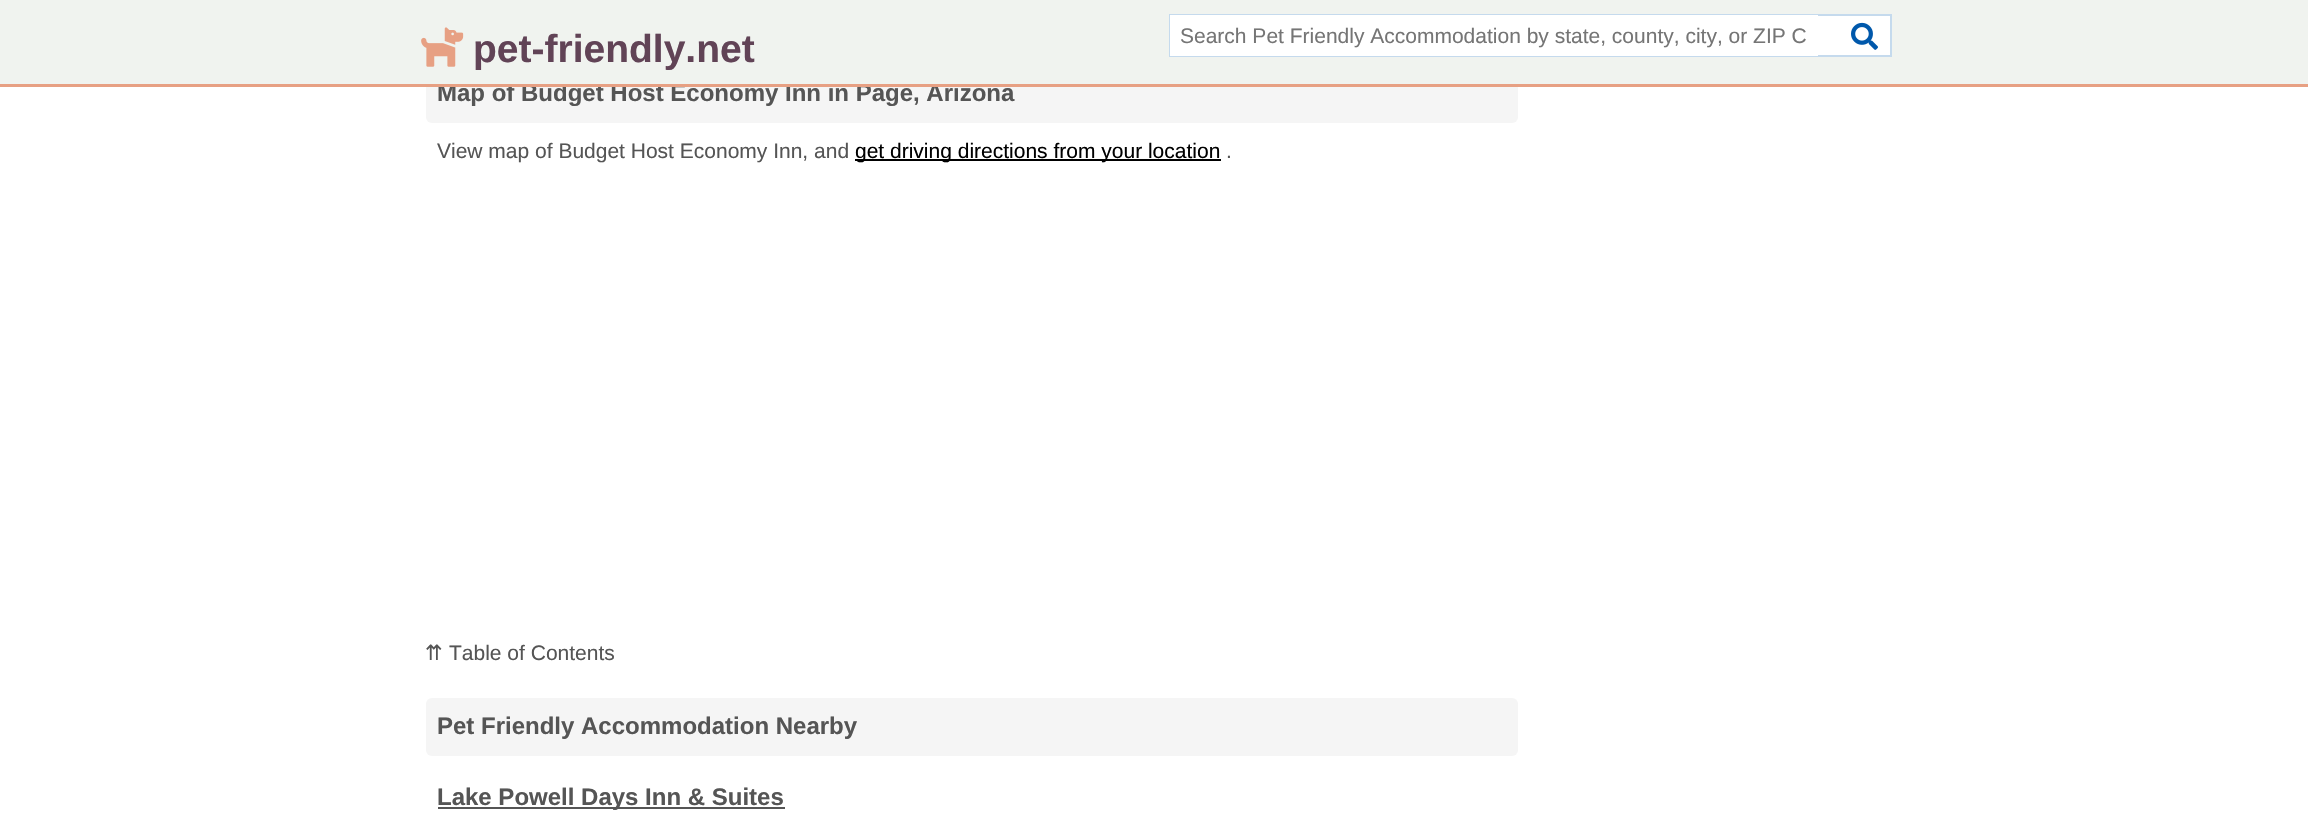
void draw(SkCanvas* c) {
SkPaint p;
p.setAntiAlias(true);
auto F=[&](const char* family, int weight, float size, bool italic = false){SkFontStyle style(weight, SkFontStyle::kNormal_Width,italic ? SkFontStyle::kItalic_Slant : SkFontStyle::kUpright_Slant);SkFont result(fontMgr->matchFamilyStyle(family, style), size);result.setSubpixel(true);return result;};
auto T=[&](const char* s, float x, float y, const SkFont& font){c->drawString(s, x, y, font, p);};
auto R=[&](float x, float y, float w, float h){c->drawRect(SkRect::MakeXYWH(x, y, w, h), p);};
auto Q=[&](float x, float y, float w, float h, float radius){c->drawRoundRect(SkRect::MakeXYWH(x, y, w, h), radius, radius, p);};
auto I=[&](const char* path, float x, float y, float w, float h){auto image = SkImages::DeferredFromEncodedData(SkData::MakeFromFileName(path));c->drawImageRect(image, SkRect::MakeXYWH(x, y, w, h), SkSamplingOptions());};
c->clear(0xffffffff);
p.setColor(0xfff5f5f5);
Q(426,65,1092,58,6);
auto f1 = F("Liberation Sans",700,24);
p.setColor(0xff555555);
T("Map of Budget Host Economy Inn in Page, Arizona",437,101,f1);
p.setColor(0xfff0f3ef);
R(0,0,2308,84);
p.setColor(0xffe7a083);
R(0,84,2308,3);
I("1.png",421,27,43,40);
auto f2 = F("Liberation Sans",700,39);
p.setColor(0xff614356);
T("pet-friendly.net",473,62,f2);
p.setColor(0xffffffff);
R(1818,16,72,39);
p.setStroke(true);
p.setStrokeWidth(2);
p.setColor(0xffc5daed);
c->drawRect(SkRect::MakeXYWH(1170,15,721,41),p);
p.setStroke(false);
p.setColor(0xffffffff);
R(1170,15,648,41);
auto f3 = F("Liberation Sans",400,21);
p.setColor(0xff757575);
T("Search Pet Friendly Accommodation by state, county, city, or ZIP C",1180,43,f3);
I("2.png",1851,22,27,28);
p.setColor(0xff555555);
T("View map of Budget Host Economy Inn, and",437,158,f3);
p.setColor(0xff000000);
R(855,159,366,2);
T("get driving directions from your location",855,158,f3);
p.setColor(0xff555555);
T(".",1226,158,f3);
auto f4 = F("DejaVu Sans",400,21);
T("⇈",425,660,f4);
T("Table of Contents",449,660,f3);
p.setColor(0xfff5f5f5);
Q(426,698,1092,58,6);
p.setColor(0xff555555);
T("Pet Friendly Accommodation Nearby",437,734,f1);
R(438,807,347,2);
T("Lake Powell Days Inn & Suites",437,805,f1);
}
